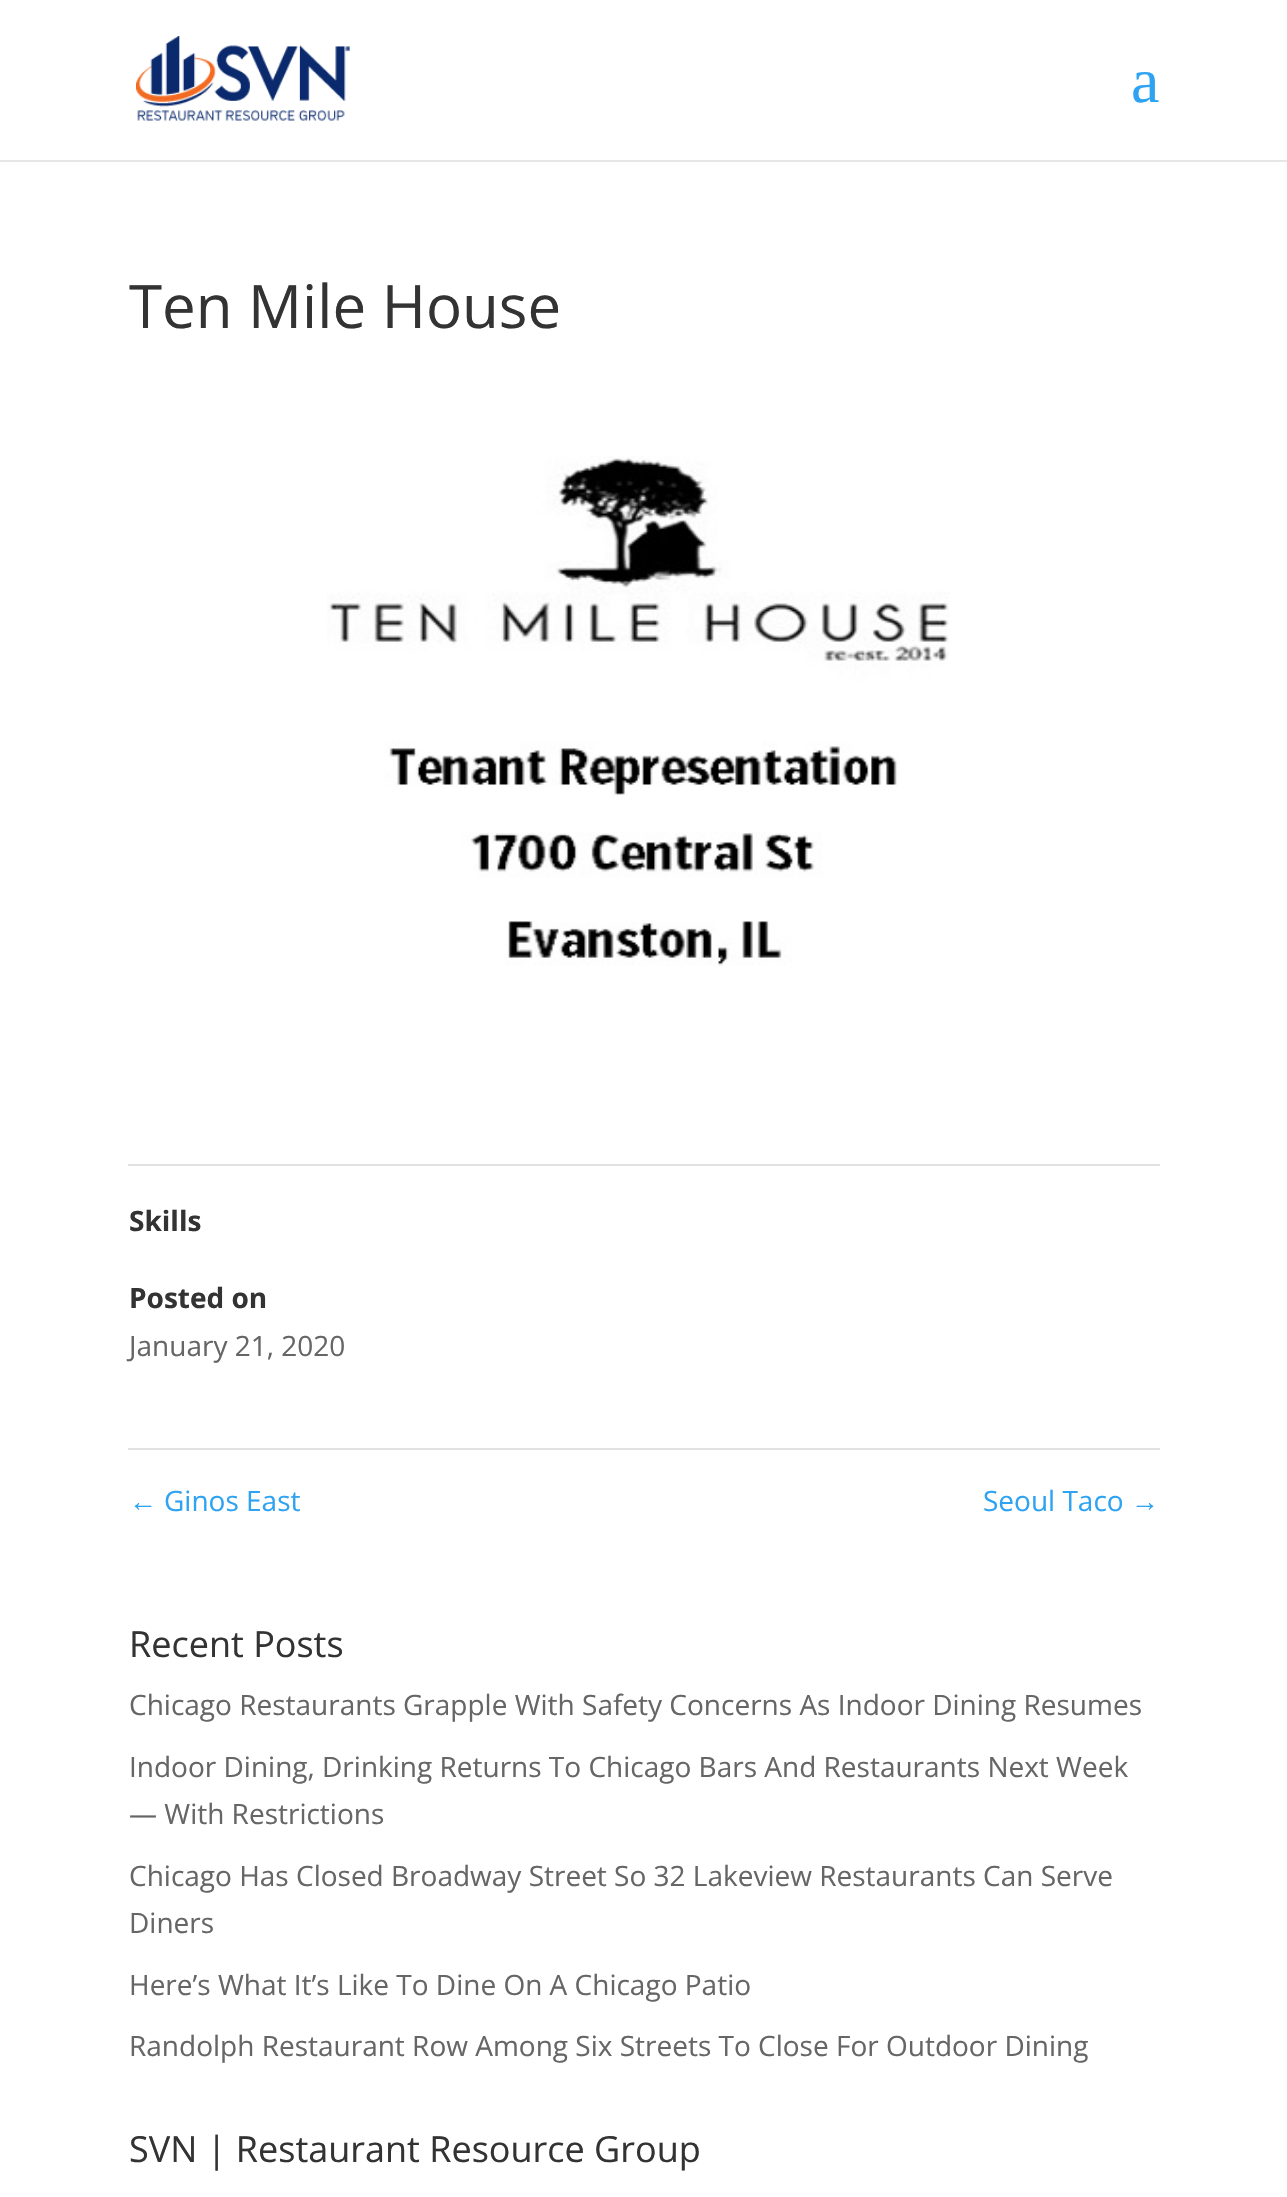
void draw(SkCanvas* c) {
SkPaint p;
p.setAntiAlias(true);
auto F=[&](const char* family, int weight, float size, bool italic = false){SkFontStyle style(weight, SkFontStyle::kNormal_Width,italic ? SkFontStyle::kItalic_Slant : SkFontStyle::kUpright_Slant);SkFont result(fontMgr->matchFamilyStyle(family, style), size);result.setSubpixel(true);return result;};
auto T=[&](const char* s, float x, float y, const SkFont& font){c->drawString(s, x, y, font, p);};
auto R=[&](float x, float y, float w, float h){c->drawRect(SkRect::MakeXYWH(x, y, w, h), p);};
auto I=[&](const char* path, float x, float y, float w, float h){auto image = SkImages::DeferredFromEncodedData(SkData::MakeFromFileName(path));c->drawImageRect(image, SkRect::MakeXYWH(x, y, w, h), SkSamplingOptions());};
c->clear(0xffffffff);
p.setColor(0xffe6e6e6);
R(0,160,1287,2);
I("1.png",136,36,214,85);
auto f1 = F("Liberation Serif",400,64);
p.setColor(0xff2ea3f2);
T("a",1131,102,f1);
auto f2 = F("Open Sans",400,60);
p.setColor(0xff333333);
T("Ten Mile House",129,328,f2);
I("2.png",327,456,623,510);
p.setColor(0xffe2e2e2);
R(128,1164,1032,2);
R(128,1448,1032,2);
auto f3 = F("Open Sans",700,28);
p.setColor(0xff333333);
T("Skills",129,1231,f3);
T("Posted on",129,1308,f3);
auto f4 = F("Open Sans",400,28);
p.setColor(0xff666666);
T("January 21, 2020",129,1356,f4);
auto f5 = F("Liberation Sans",400,28);
p.setColor(0xff2ea3f2);
T("←",129,1511,f5);
T("Ginos East",164,1511,f4);
T("Seoul Taco",983,1511,f4);
T("→",1131,1511,f5);
auto f6 = F("Open Sans",400,36);
p.setColor(0xff333333);
T("Recent Posts",129,1657,f6);
p.setColor(0xff666666);
T("Chicago Restaurants Grapple With Safety Concerns As Indoor Dining Resumes",129,1715,f4);
T("Indoor Dining, Drinking Returns To Chicago Bars And Restaurants Next Week",129,1777,f4);
T("— With Restrictions",129,1824,f4);
T("Chicago Has Closed Broadway Street So 32 Lakeview Restaurants Can Serve",129,1886,f4);
T("Diners",129,1933,f4);
T("Here’s What It’s Like To Dine On A Chicago Patio",129,1995,f4);
T("Randolph Restaurant Row Among Six Streets To Close For Outdoor Dining",129,2056,f4);
p.setColor(0xff333333);
T("SVN | Restaurant Resource Group",129,2162,f6);
}
